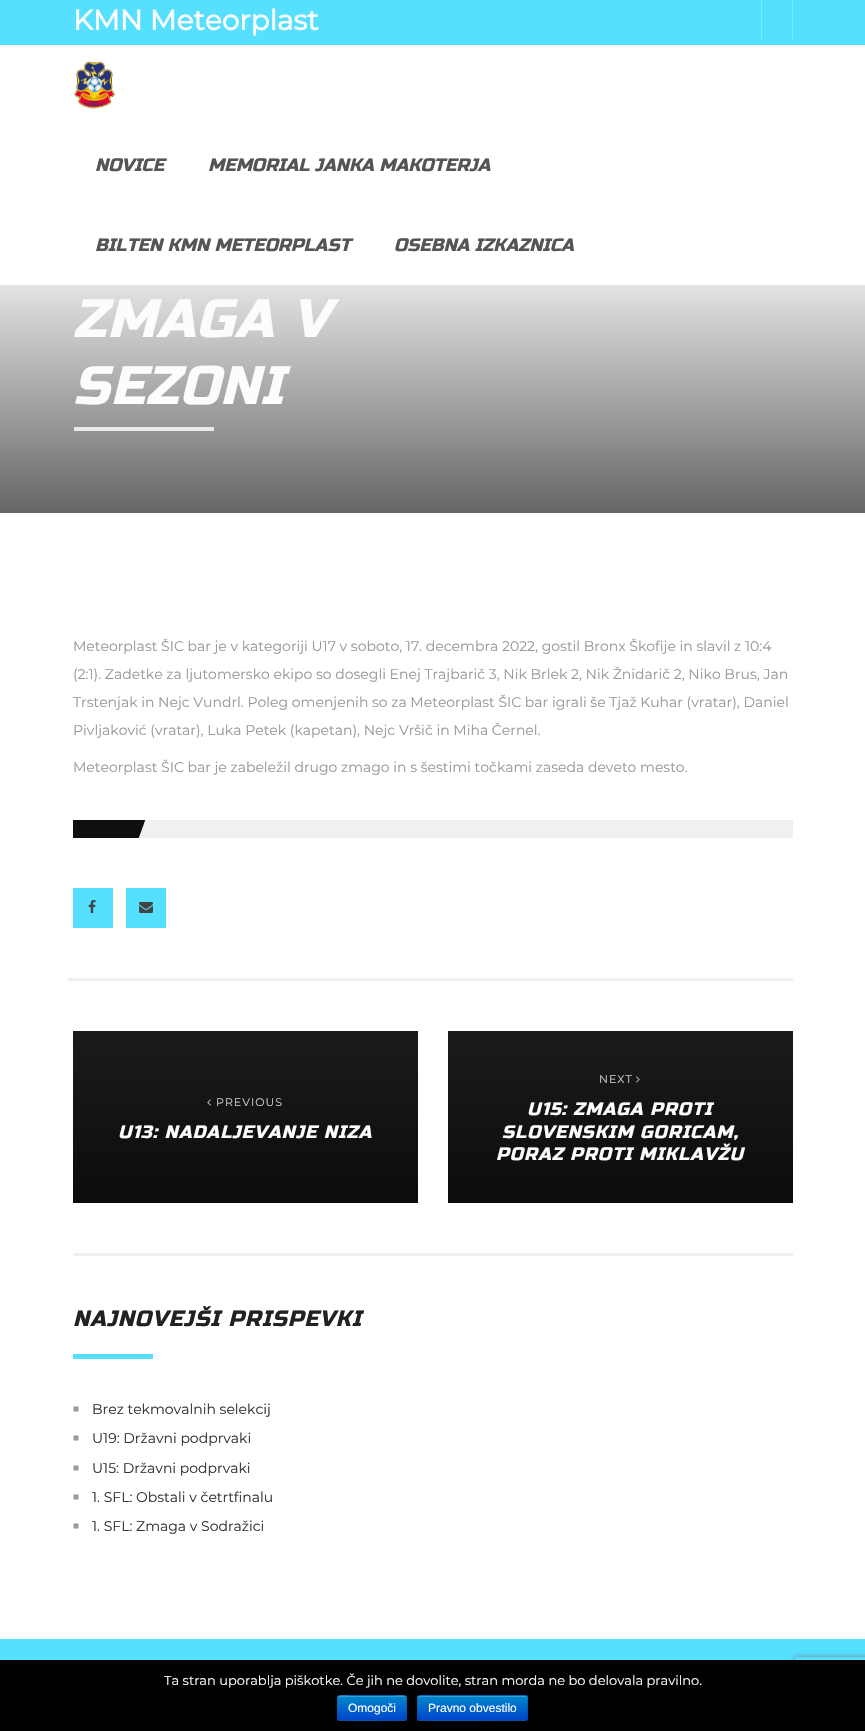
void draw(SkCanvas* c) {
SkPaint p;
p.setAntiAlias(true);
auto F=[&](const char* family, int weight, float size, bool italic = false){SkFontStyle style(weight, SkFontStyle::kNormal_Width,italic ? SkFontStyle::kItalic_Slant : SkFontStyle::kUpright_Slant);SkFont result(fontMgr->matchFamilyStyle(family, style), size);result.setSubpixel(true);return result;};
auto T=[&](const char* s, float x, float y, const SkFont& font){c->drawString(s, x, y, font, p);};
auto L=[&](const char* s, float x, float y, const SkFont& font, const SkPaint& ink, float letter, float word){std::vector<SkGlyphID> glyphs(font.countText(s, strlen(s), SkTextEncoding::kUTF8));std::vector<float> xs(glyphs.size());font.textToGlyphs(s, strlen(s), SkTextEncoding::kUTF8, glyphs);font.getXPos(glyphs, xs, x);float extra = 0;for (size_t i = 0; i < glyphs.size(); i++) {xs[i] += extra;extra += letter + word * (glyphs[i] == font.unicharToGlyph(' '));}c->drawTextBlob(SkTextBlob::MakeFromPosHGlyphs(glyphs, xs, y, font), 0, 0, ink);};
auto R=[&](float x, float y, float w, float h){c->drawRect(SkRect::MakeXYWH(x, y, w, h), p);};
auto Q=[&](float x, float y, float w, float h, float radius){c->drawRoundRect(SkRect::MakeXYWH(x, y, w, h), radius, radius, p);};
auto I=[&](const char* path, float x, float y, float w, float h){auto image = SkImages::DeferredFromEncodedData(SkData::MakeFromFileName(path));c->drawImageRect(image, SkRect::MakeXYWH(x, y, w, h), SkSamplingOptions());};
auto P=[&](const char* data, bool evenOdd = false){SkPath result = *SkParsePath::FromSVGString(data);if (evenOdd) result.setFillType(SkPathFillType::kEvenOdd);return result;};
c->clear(0xffffffff);
p.setColor(0xff56e0ff);
R(0,0,865,45);
auto f1 = F("Montserrat",700,28);
p.setColor(0xfffcfcfc);
T("KMN Meteorplast",73,30,f1);
p.setColor(0xff78e6ff);
R(792,0,1,40);
p.setColor(0xff82e8ff);
R(761,0,1,40);
I("1.png",74,61,41,48);
auto f2 = F("Russo One",400,18,true);
p.setColor(0xff555555);
T("NOVICE",95,171,f2);
T("MEMORIAL JANKA MAKOTERJA",208,171,f2);
T("BILTEN KMN METEORPLAST",95,251,f2);
T("OSEBNA IZKAZNICA",394,251,f2);
{
const SkColor colors[] = {0xffffffff,0xff666666};
const float stops[] = {0,1};
const SkPoint ends[] = {{433,233}, {433,513}};
p.setShader(SkGradientShader::MakeLinear(ends, colors, stops, 2, SkTileMode::kClamp));
p.setAlpha(255);
}
R(0,285,865,228);
I("2.png",731,255,11,9);
auto f3 = F("Russo One",400,54,true);
p.setShader(nullptr);
p.setColor(0xfffcfcfc);
L("ZMAGA V",73,337,f3,p,1,0);
L("SEZONI",73,404,f3,p,1,0);
p.setColor(0xffeaeaea);
R(74,427,140,4);
auto f4 = F("Montserrat",100,14);
p.setColor(0xff999999);
T("Meteorplast ŠIC bar je v kategoriji U17 v soboto, 17. decembra 2022, gostil Bronx Škofije in slavil z 10:4",73,651,f4);
T("(2:1). Zadetke za ljutomersko ekipo so dosegli Enej Trajbarič 3, Nik Brlek 2, Nik Žnidarič 2, Niko Brus, Jan",73,679,f4);
T("Trstenjak in Nejc Vundrl. Poleg omenjenih so za Meteorplast ŠIC bar igrali še Tjaž Kuhar (vratar), Daniel",73,707,f4);
T("Pivljaković (vratar), Luka Petek (kapetan), Nejc Vršič in Miha Černel.",73,735,f4);
T("Meteorplast ŠIC bar je zabeležil drugo zmago in s šestimi točkami zaseda deveto mesto.",73,772,f4);
p.setColor(0xfff0f0f0);
R(138,820,655,18);
c->save();
c->clipRect(SkRect::MakeXYWH(73,820,720,18));
p.setColor(0xff0f0f0f);
c->drawPath(P("M66 789l80 29l-66 183l-80-29z"),p);
c->restore();
p.setColor(0xfff0f0f0);
R(68,978,725,3);
p.setColor(0xff56e0ff);
R(73,888,40,40);
I("3.png",88,900,8,13);
R(126,888,40,40);
I("4.png",139,902,14,11);
p.setColor(0xfff0f0f0);
R(73,1253,720,3);
{
const SkColor colors[] = {0xff1b1b1b,0xff0c0c0c};
const float stops[] = {0,1};
const SkPoint ends[] = {{246,1031}, {246,1203}};
p.setShader(SkGradientShader::MakeLinear(ends, colors, stops, 2, SkTileMode::kClamp));
p.setAlpha(255);
}
R(73,1031,345,172);
I("5.png",207,1099,4,7);
auto f5 = F("Montserrat",100,11);
p.setShader(nullptr);
p.setColor(0xffcccccc);
L("PREVIOUS",216,1106,f5,p,1,0);
p.setColor(0xfffcfcfc);
L("U13: NADALJEVANJE NIZA",118,1138,f2,p,1,0);
{
const SkColor colors[] = {0xff1b1b1b,0xff0c0c0c};
const float stops[] = {0,1};
const SkPoint ends[] = {{621,1031}, {621,1203}};
p.setShader(SkGradientShader::MakeLinear(ends, colors, stops, 2, SkTileMode::kClamp));
p.setAlpha(255);
}
R(448,1031,345,172);
p.setShader(nullptr);
p.setColor(0xffcccccc);
L("NEXT",599,1083,f5,p,1,0);
I("6.png",636,1076,4,7);
p.setColor(0xfffcfcfc);
L("U15: ZMAGA PROTI",527,1115,f2,p,1,0);
L("SLOVENSKIM GORICAM,",502,1138,f2,p,1,0);
L("PORAZ PROTI MIKLAVŽU",496,1160,f2,p,1,0);
auto f6 = F("Russo One",400,22,true);
p.setColor(0xff222222);
L("NAJNOVEJŠI PRISPEVKI",73,1326,f6,p,1,0);
p.setColor(0xff56e0ff);
R(73,1354,80,5);
auto f7 = F("Liberation Sans",400,10);
p.setColor(0xff999999);
T("■",73,1412,f7);
p.setColor(0xff343434);
T("Brez tekmovalnih selekcij",92,1414,f4);
p.setColor(0xff999999);
T("■",73,1441,f7);
p.setColor(0xff343434);
T("U19: Državni podprvaki",92,1443,f4);
p.setColor(0xff999999);
T("■",73,1471,f7);
p.setColor(0xff343434);
T("U15: Državni podprvaki",92,1473,f4);
p.setColor(0xff999999);
T("■",73,1500,f7);
p.setColor(0xff343434);
T("1. SFL: Obstali v četrtfinalu",92,1502,f4);
p.setColor(0xff999999);
T("■",73,1529,f7);
p.setColor(0xff343434);
T("1. SFL: Zmaga v Sodražici",92,1531,f4);
p.setColor(0xff56e0ff);
R(0,1639,865,21);
c->save();
c->clipPath(P("M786 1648h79v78h-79zm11 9h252c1 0 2 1 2 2v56c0 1-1 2-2 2h-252c-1 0-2-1-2-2v-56c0-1 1-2 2-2z",true),true);
p.setColor(0xff808080);
p.setMaskFilter(SkMaskFilter::MakeBlur(kNormal_SkBlurStyle, 2.5));
c->drawRoundRect(SkRect::MakeXYWH(795,1657,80,60),2,2,p);
p.setMaskFilter(nullptr);
c->restore();
p.setColor(0xff000000);
R(0,1660,865,71);
auto f8 = F("Montserrat",100,13);
p.setColor(0xfffcfcfc);
T("Ta stran uporablja piškotke. Če jih ne dovolite, stran morda ne bo delovala pravilno.",164,1685,f8);
p.setColor(0xff006dcc);
Q(337,1695,70,26,3);
c->save();
c->clipPath(P("M340 1695h64c1.5 0 3 1.5 3 3v20c0 1.5-1.5 3-3 3h-64c-1.5 0-3-1.5-3-3v-20c0-1.5 1.5-3 3-3z"),true);
{
const SkColor colors[] = {0xff0088cc,0xff0044cc};
const float stops[] = {0,1};
const SkPoint ends[] = {{372,1696}, {372,1720}};
p.setShader(SkGradientShader::MakeLinear(ends, colors, stops, 2, SkTileMode::kClamp));
p.setAlpha(255);
}
R(337,1696,70,24);
c->restore();
p.setShader(nullptr);
p.setColor(0x33ffffff);
c->drawPath(P("M340 1697h65l1 2c0-6-9-3-13-3h-42c-4 0-13-3-13 3c0-1 1-2 2-2z"),p);
p.setStroke(true);
p.setStrokeWidth(1);
p.setColor(0x40000000);
c->drawPath(P("M406 1720l-2 .5h-10.5c-6.5 0-53 1-55-.5h-.5"),p);
p.setColor(0x1a000000);
c->drawPath(P("M338 1720c-1.5-2-.5-9.5-.5-12c0-15-2.5-12.5 13-12.5h43c15.5 0 13-2.5 13 12.5c0 2.5 1 10-.5 12"),p);
auto f9 = F("Liberation Sans",400,12);
p.setStroke(false);
p.setColor(0xfffcfcfc);
T("Omogoči",348,1712,f9);
p.setColor(0xff006dcc);
Q(417,1695,111,26,3);
c->save();
c->clipPath(P("M420 1695h105c1.5 0 3 1.5 3 3v20c0 1.5-1.5 3-3 3h-105c-1.5 0-3-1.5-3-3v-20c0-1.5 1.5-3 3-3z"),true);
{
const SkColor colors[] = {0xff0088cc,0xff0044cc};
const float stops[] = {0,1};
const SkPoint ends[] = {{473,1696}, {473,1720}};
p.setShader(SkGradientShader::MakeLinear(ends, colors, stops, 2, SkTileMode::kClamp));
p.setAlpha(255);
}
R(417,1696,111,24);
c->restore();
p.setShader(nullptr);
p.setColor(0x33ffffff);
c->drawPath(P("M420 1697h105c1 0 2 1 2 2c0-1 0-3-2-3h-105c-2 0-2 2-2 3c0-1 1-2 2-2z"),p);
p.setStroke(true);
p.setColor(0x40000000);
c->drawPath(P("M527 1720l-2 .5h-17.5c-9 0-87 1-89-.5h-.5"),p);
p.setColor(0x1a000000);
c->drawPath(P("M418 1720c-1.5-2-.5-9.5-.5-12c0-17-1.5-12.5 20-12.5h70c21.5 0 20-4.5 20 12.5c0 2.5 1 10-.5 12"),p);
p.setStroke(false);
p.setColor(0xfffcfcfc);
T("Pravno obvestilo",428,1712,f9);
}
